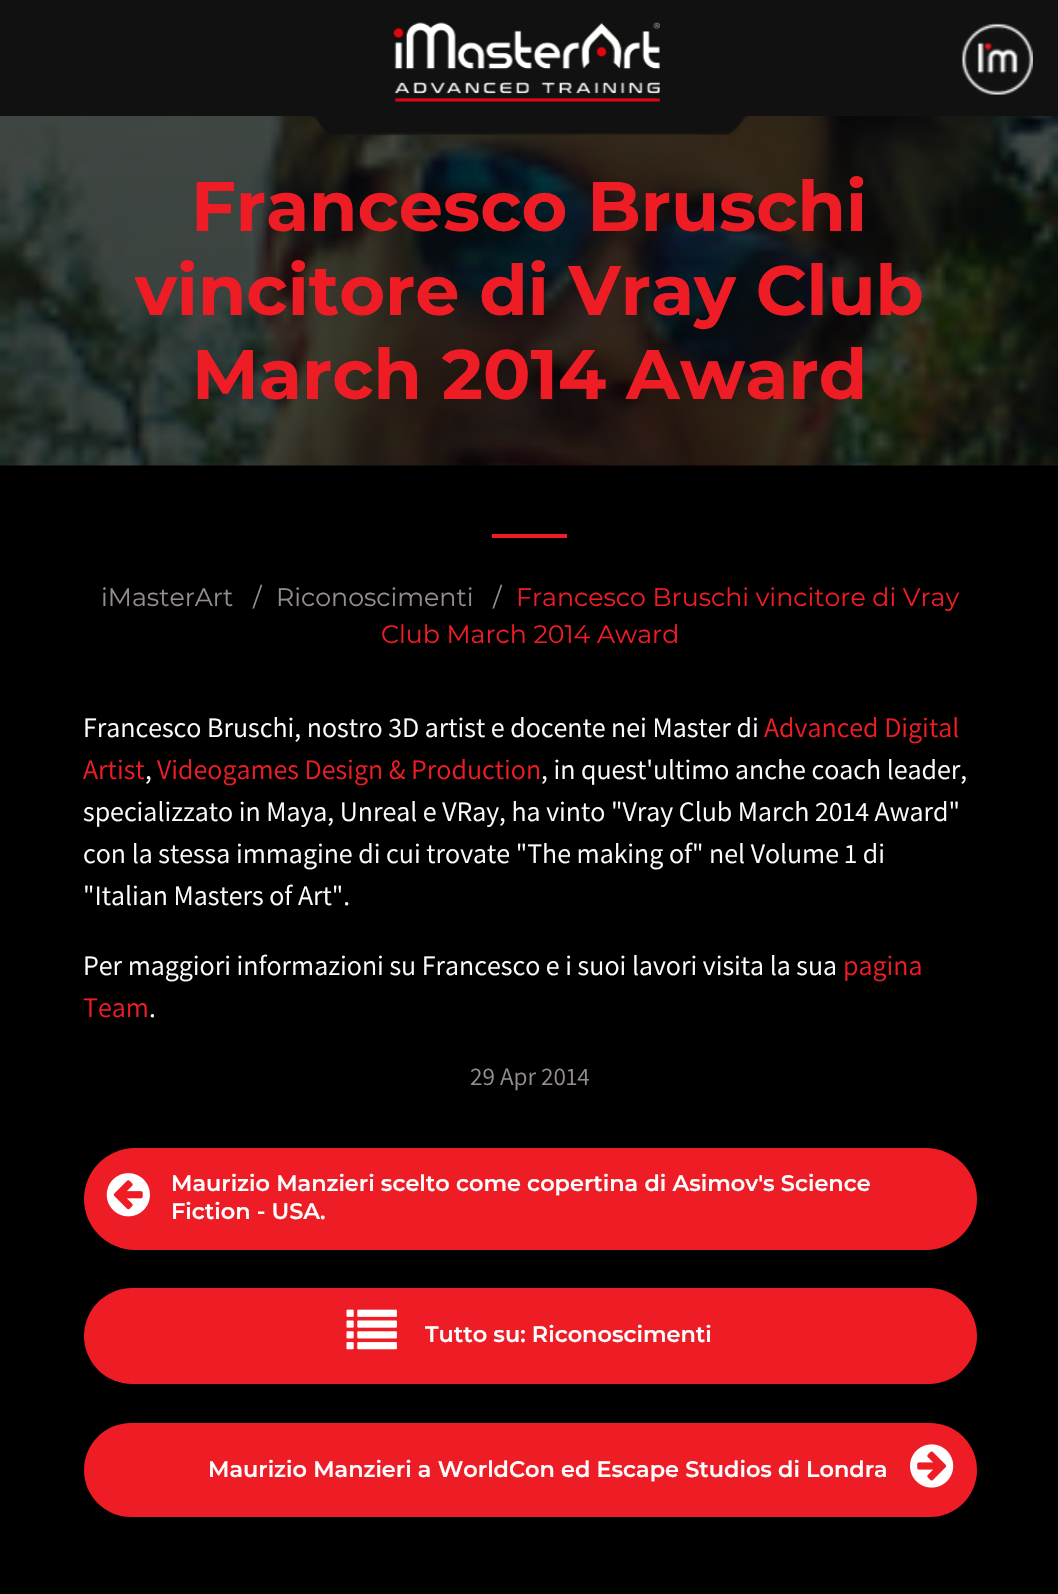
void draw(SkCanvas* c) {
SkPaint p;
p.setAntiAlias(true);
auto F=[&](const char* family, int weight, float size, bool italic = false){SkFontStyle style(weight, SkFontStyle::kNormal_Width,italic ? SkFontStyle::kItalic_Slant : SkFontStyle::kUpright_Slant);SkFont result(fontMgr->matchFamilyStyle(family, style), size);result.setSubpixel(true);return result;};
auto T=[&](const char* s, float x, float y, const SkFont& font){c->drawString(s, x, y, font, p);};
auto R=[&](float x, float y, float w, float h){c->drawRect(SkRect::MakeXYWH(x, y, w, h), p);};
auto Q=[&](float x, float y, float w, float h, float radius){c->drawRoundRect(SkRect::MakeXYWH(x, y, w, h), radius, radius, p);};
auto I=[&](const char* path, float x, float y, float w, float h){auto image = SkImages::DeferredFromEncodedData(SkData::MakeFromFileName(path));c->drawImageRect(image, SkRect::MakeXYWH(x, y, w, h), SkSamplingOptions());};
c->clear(0xff000000);
p.setColor(0xff111111);
R(0,0,1058,116);
I("1.png",393,22,267,80);
I("2.png",961,23,72,72);
I("4.png",0,116,1058,350);
I("3.png",312,116,437,19);
auto f1 = F("Montserrat",700,70);
p.setColor(0xffee1c25);
T("Francesco Bruschi",191,231,f1);
T("vincitore di Vray Club",135,315,f1);
T("March 2014 Award",192,399,f1);
R(492,534,75,4);
auto f2 = F("Montserrat",400,25.25);
p.setColor(0xff938d8c);
T("iMasterArt",101,606,f2);
T("/",253,606,f2);
T("Riconoscimenti",276,606,f2);
T("/",493,606,f2);
p.setColor(0xffee1c25);
T("Francesco Bruschi vincitore di Vray",516,606,f2);
T("Club March 2014 Award",381,643,f2);
auto f3 = F("Assistant",400,28);
p.setColor(0xfffbfdfe);
T("Francesco Bruschi, nostro 3D artist e docente nei Master di",83,737,f3);
p.setColor(0xffee1c25);
T("Advanced Digital",764,737,f3);
T("Artist",83,779,f3);
p.setColor(0xfffbfdfe);
T(",",145,779,f3);
p.setColor(0xffee1c25);
T("Videogames Design & Production",157,779,f3);
p.setColor(0xfffbfdfe);
T(", in quest'ultimo anche coach leader,",541,779,f3);
T("specializzato in Maya, Unreal e VRay, ha vinto \"Vray Club March 2014 Award\"",83,821,f3);
T("con la stessa immagine di cui trovate \"The making of\" nel Volume 1 di",83,863,f3);
T("\"Italian Masters of Art\".",83,905,f3);
T("Per maggiori informazioni su Francesco e i suoi lavori visita la sua",83,975,f3);
p.setColor(0xffee1c25);
T("pagina",843,975,f3);
T("Team",83,1017,f3);
p.setColor(0xfffbfdfe);
T(".",149,1017,f3);
auto f4 = F("Assistant",400,25.25);
p.setColor(0xff938d8c);
T("29 Apr 2014",470,1085,f4);
p.setColor(0xffee1c25);
Q(84,1148,893,102,51);
I("5.png",106,1173,44,44);
auto f5 = F("Montserrat",600,22.4);
p.setColor(0xfffbfdfe);
T("Maurizio Manzieri scelto come copertina di Asimov's Science",171,1191,f5);
T("Fiction - USA.",171,1219,f5);
p.setColor(0xffee1c25);
Q(84,1288,893,96,48);
I("6.png",346,1309,51,41);
p.setColor(0xfffbfdfe);
T("Tutto su: Riconoscimenti",425,1342,f5);
p.setColor(0xffee1c25);
Q(84,1423,893,94,47);
p.setColor(0xfffbfdfe);
T("Maurizio Manzieri a WorldCon ed Escape Studios di Londra",208,1477,f5);
I("7.png",910,1444,44,44);
}
